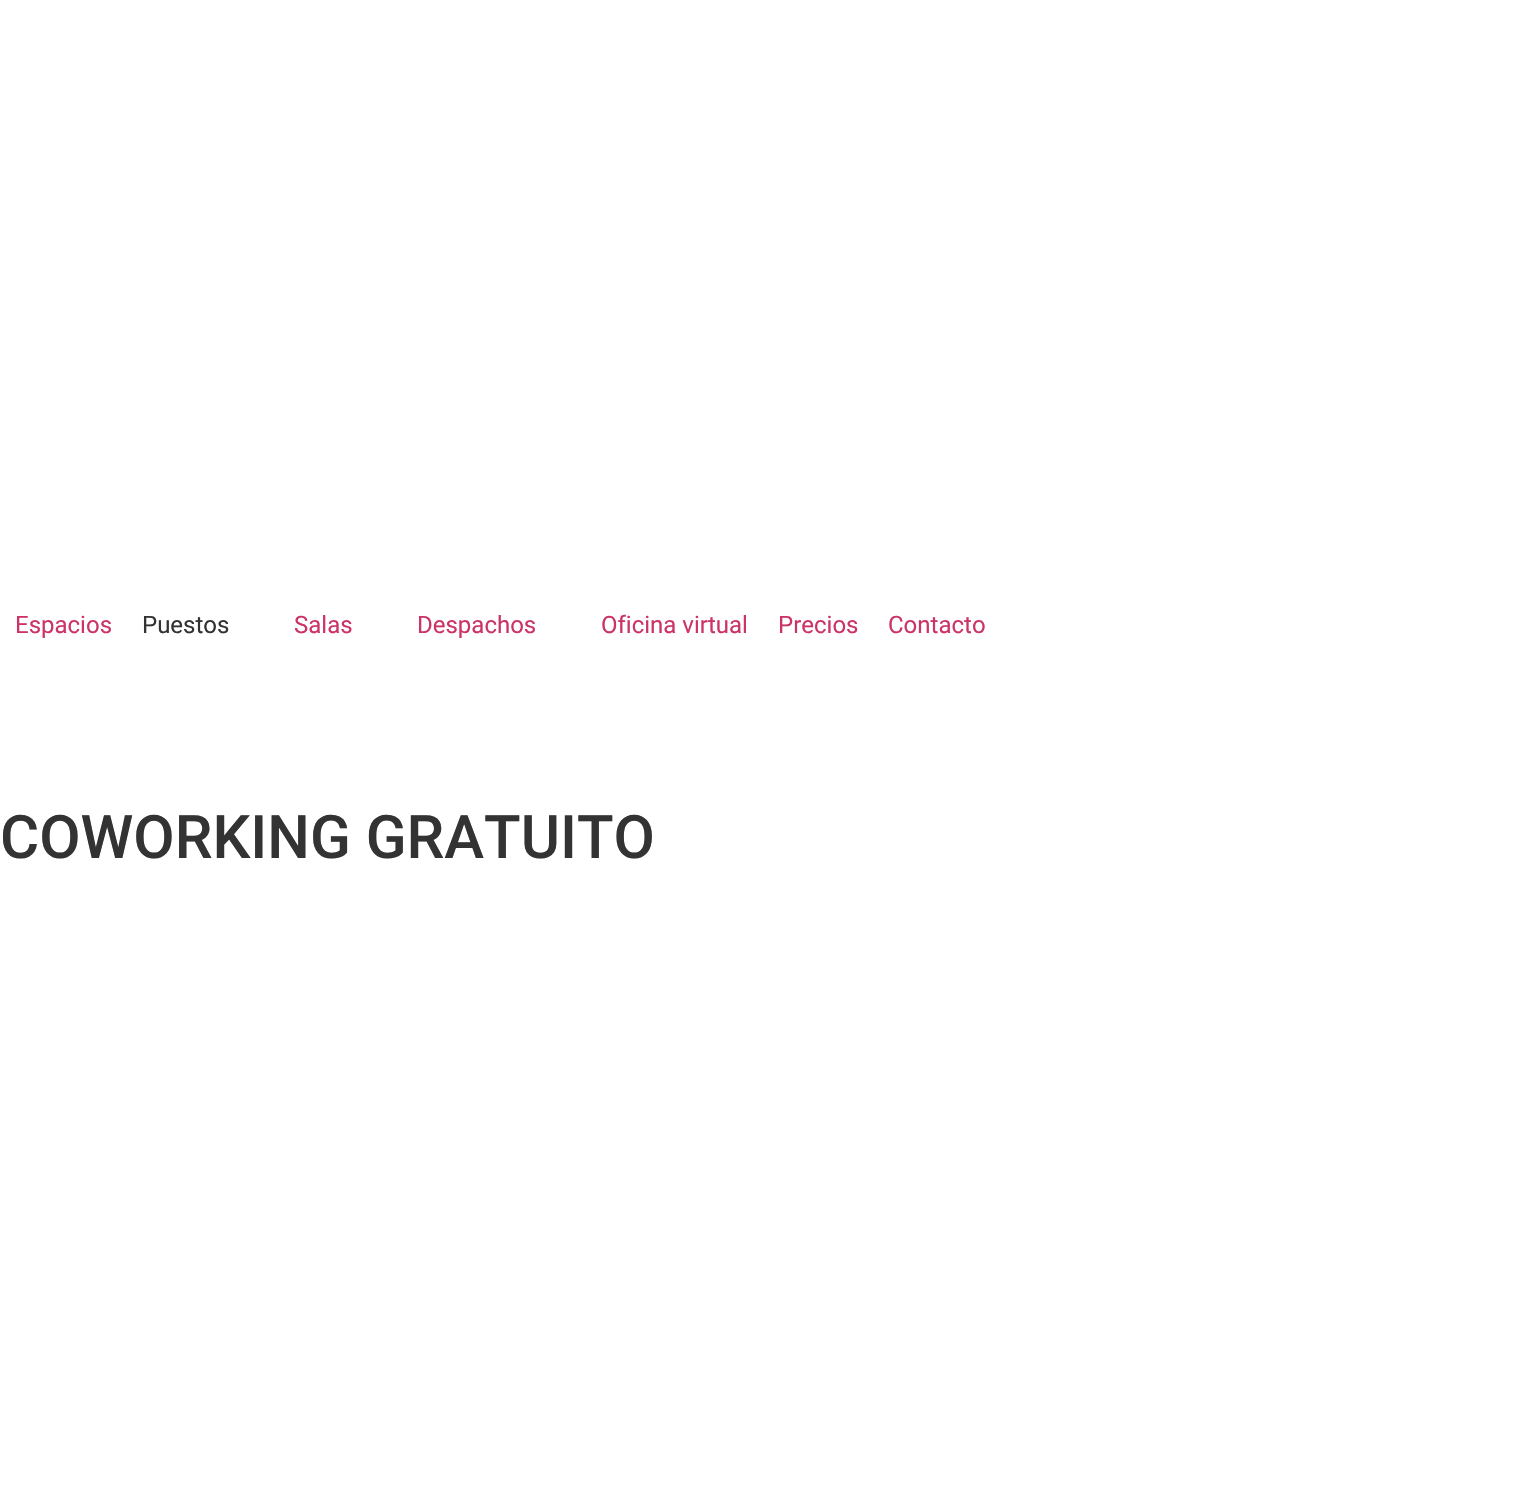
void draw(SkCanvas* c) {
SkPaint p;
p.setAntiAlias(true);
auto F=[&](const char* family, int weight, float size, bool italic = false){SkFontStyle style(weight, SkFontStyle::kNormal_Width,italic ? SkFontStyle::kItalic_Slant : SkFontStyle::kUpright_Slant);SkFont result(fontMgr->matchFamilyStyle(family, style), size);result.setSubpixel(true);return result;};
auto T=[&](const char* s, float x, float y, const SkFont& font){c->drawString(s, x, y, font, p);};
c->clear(0xffffffff);
auto f1 = F("Roboto",400,24);
p.setColor(0xffcc3366);
T("Espacios",15,633,f1);
p.setColor(0xff333333);
T("Puestos",142,633,f1);
p.setColor(0xffcc3366);
T("Salas",294,633,f1);
T("Despachos",417,633,f1);
T("Oficina virtual",601,633,f1);
T("Precios",778,633,f1);
T("Contacto",888,633,f1);
auto f2 = F("Roboto",500,60);
p.setColor(0xff333333);
T("COWORKING GRATUITO",0,858,f2);
}
